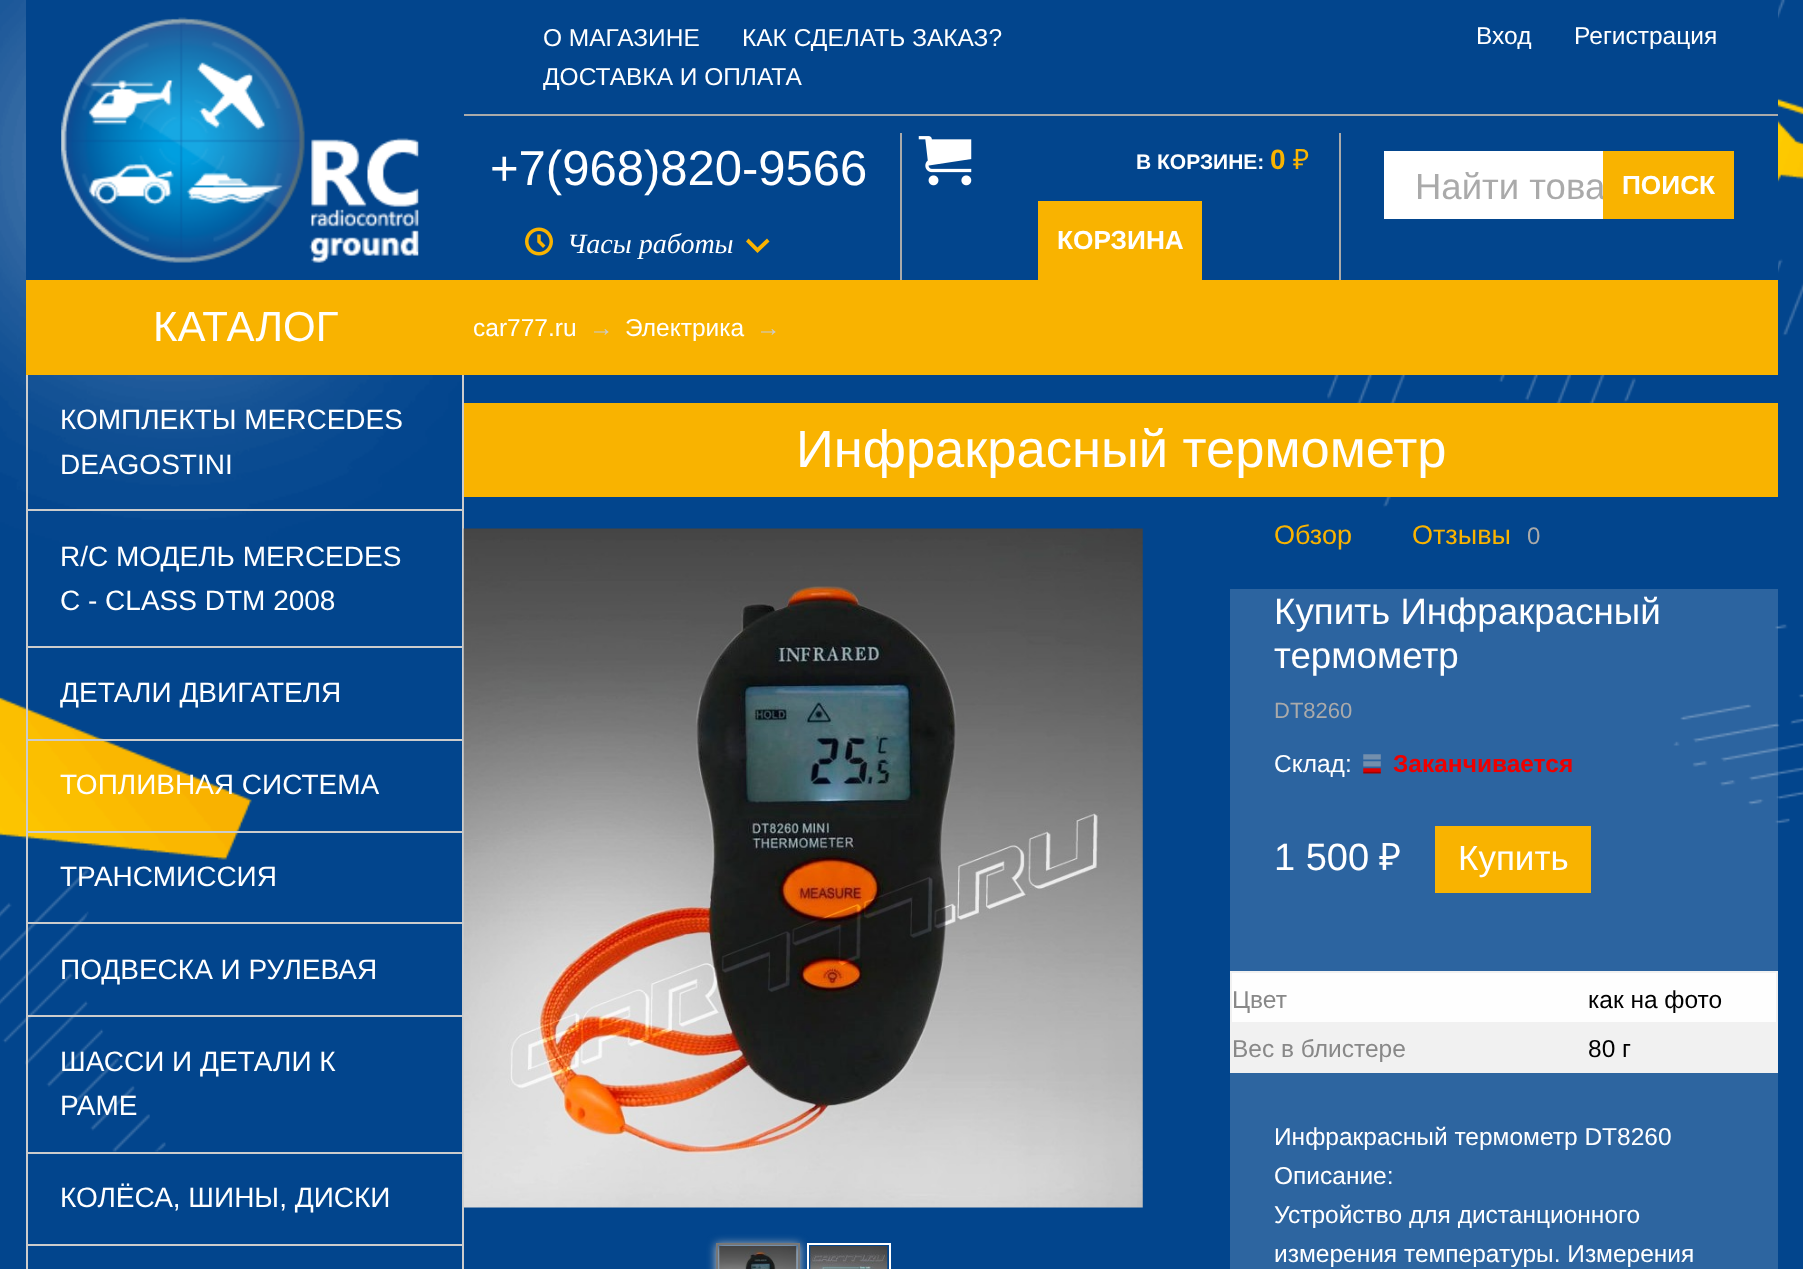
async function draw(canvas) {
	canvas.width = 1803;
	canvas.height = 1269;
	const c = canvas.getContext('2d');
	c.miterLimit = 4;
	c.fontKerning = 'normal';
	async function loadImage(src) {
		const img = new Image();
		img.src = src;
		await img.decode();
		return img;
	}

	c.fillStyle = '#02458d';
	c.fillRect(0, 0, 1803, 1269);
	c.drawImage(await loadImage('img1.png'), 0, 0, 1803, 1152);
	c.fillRect(26, 0, 1752, 280);
	c.drawImage(await loadImage('img2.png'), 61, 17, 358, 246);
	c.font = '24.5px Liberation Sans';
	c.fillStyle = '#fff';
	for (const [text, x, y] of [
		['О МАГАЗИНЕ', 543, 46],
		['КАК СДЕЛАТЬ ЗАКАЗ?', 742, 46],
		['ДОСТАВКА И ОПЛАТА', 543, 85],
		['Вход', 1476, 44],
		['Регистрация', 1574, 44],
	]) {
		c.fillText(text, x, y);
	}
	c.fillStyle = '#aaa';
	c.fillRect(464, 114, 1314, 2);
	c.fillRect(900, 133, 2, 147);
	c.font = '49px Liberation Sans';
	c.fillStyle = '#fff';
	c.fillText('+7(968)820-9566', 490, 185);
	c.drawImage(await loadImage('img3.png'), 525, 227, 28, 29);
	c.font = 'italic 28px Liberation Serif';
	c.fillText('Часы работы', 567, 253);
	c.fillStyle = '#f9b300';
	c.beginPath();
	c.moveTo(748.5, 238.5);
	c.lineTo(757.5, 247.5);
	c.lineTo(767, 238.5);
	c.lineTo(769.5, 241.5);
	c.lineTo(757.5, 253);
	c.lineTo(746, 241.5);
	c.closePath();
	c.fill();
	c.fillStyle = '#aaa';
	c.fillRect(1339, 133, 2, 147);
	c.drawImage(await loadImage('img4.png'), 918, 136, 54, 50);
	c.font = 'bold 21px Liberation Sans';
	c.fillStyle = '#fff';
	c.fillText('В КОРЗИНЕ:', 1136, 169);
	c.font = 'bold 28px Liberation Sans';
	c.fillStyle = '#f9b300';
	c.fillText('0', 1270, 169);
	c.font = '28px Noto Sans';
	c.fillText('₽', 1293, 169);
	c.fillRect(1038, 201, 164, 79);
	c.font = 'bold 26.25px Liberation Sans';
	c.fillStyle = '#fff';
	c.fillText('КОРЗИНА', 1057, 249);
	c.fillRect(1384, 151, 219, 68);
	c.font = '36.5px Liberation Sans';
	c.fillStyle = '#aaa';
	c.fillText('Найти това', 1415, 199);
	c.fillStyle = '#f9b300';
	c.fillRect(1603, 151, 131, 68);
	c.font = 'bold 26.25px Liberation Sans';
	c.fillStyle = '#fff';
	c.fillText('ПОИСК', 1622, 194);
	c.fillStyle = '#f9b300';
	c.fillRect(26, 280, 1752, 95);
	c.font = '42px Liberation Sans';
	c.fillStyle = '#fff';
	c.fillText('КАТАЛОГ', 153, 341);
	for (const [x, y, w, h, color] of [
		[462, 375, 2, 894, '#ccc'],
		[26, 375, 2, 894, '#ccc'],
		[28, 509, 434, 2, '#ccc'],
	]) {
		c.fillStyle = color;
		c.fillRect(x, y, w, h);
	}
	c.font = '28px Liberation Sans';
	c.fillStyle = '#fff';
	c.fillText('КОМПЛЕКТЫ MERCEDES', 60, 429);
	c.fillText('DEAGOSTINI', 60, 474);
	c.fillStyle = '#ccc';
	c.fillRect(28, 646, 434, 2);
	c.fillStyle = '#fff';
	c.fillText('R/C МОДЕЛЬ MERCEDES', 60, 566);
	c.fillText('C - CLASS DTM 2008', 60, 610);
	c.fillStyle = '#ccc';
	c.fillRect(28, 739, 434, 2);
	c.fillStyle = '#fff';
	c.fillText('ДЕТАЛИ ДВИГАТЕЛЯ', 60, 702);
	c.fillStyle = '#ccc';
	c.fillRect(28, 831, 434, 2);
	c.fillStyle = '#fff';
	c.fillText('ТОПЛИВНАЯ СИСТЕМА', 60, 794);
	c.fillStyle = '#ccc';
	c.fillRect(28, 922, 434, 2);
	c.fillStyle = '#fff';
	c.fillText('ТРАНСМИССИЯ', 60, 886);
	c.fillStyle = '#ccc';
	c.fillRect(28, 1015, 434, 2);
	c.fillStyle = '#fff';
	c.fillText('ПОДВЕСКА И РУЛЕВАЯ', 60, 979);
	c.fillStyle = '#ccc';
	c.fillRect(28, 1152, 434, 2);
	c.fillStyle = '#fff';
	c.fillText('ШАССИ И ДЕТАЛИ К', 60, 1071);
	c.fillText('РАМЕ', 60, 1115);
	c.fillStyle = '#ccc';
	c.fillRect(28, 1244, 434, 2);
	c.fillStyle = '#fff';
	c.fillText('КОЛЁСА, ШИНЫ, ДИСКИ', 60, 1207);
	c.font = '24.5px Liberation Sans';
	c.fillText('car777.ru', 473, 336);
	c.fillStyle = '#ccc';
	c.fillText('→', 589, 336);
	c.fillStyle = '#fff';
	c.fillText('Электрика', 625, 336);
	c.fillStyle = '#ccc';
	c.fillText('→', 756, 336);
	c.fillStyle = '#f9b300';
	c.fillRect(464, 403, 1314, 94);
	c.font = '52.5px Liberation Sans';
	c.fillStyle = '#fff';
	c.fillText('Инфракрасный термометр', 796, 467);
	c.drawImage(await loadImage('img5.png'), 463, 528, 680, 680);
	c.fillStyle = '#bbb';
	c.filter = 'blur(5px)';
	c.beginPath();
	c.rect(716, 1244, 84, 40);
	c.fill();
	c.filter = 'none';
	c.strokeStyle = '#777';
	c.lineWidth = 2;
	c.strokeRect(717, 1244, 82, 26);
	c.drawImage(await loadImage('img6.png'), 719, 1246, 78, 23);
	c.strokeStyle = '#fff';
	c.strokeRect(808, 1244, 82, 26);
	c.drawImage(await loadImage('img7.png'), 810, 1246, 78, 23);
	c.font = '27px Liberation Sans';
	c.fillStyle = '#f9b300';
	c.fillText('Обзор', 1274, 544);
	c.fillText('Отзывы', 1412, 544);
	c.font = '24px Liberation Sans';
	c.fillStyle = '#aaa';
	c.fillText('0', 1527, 544);
	c.fillStyle = '#ffffff2b';
	c.fillRect(1230, 589, 548, 382);
	c.font = '36.75px Liberation Sans';
	c.fillStyle = '#fff';
	c.fillText('Купить Инфракрасный', 1274, 624);
	c.fillText('термометр', 1274, 668);
	c.font = '22px Liberation Sans';
	c.fillStyle = '#aaa';
	c.fillText('DT8260', 1274, 718);
	c.font = '24.5px Liberation Sans';
	c.fillStyle = '#fff';
	c.fillText('Склад:', 1274, 772);
	c.drawImage(await loadImage('img8.png'), 1363, 754, 18, 20);
	c.font = 'bold 24.5px Liberation Sans';
	c.fillStyle = '#e00';
	c.fillText('Заканчивается', 1393, 772);
	c.font = '38px Liberation Sans';
	c.fillStyle = '#fff';
	c.fillText('1 500', 1274, 870);
	c.font = '38px Noto Sans';
	c.fillText('₽', 1379, 870);
	c.fillStyle = '#f9b300';
	c.fillRect(1435, 826, 156, 67);
	c.font = '35px Liberation Sans';
	c.fillStyle = '#fff';
	c.fillText('Купить', 1458, 870);
	for (const [x, y, w, h, color] of [
		[1232, 973, 544, 49, '#fefefe'],
		[1230, 971, 548, 2, '#f1f1f1'],
		[1776, 971, 2, 102, '#f1f1f1'],
		[1230, 1071, 548, 2, '#f1f1f1'],
		[1230, 971, 2, 102, '#f1f1f1'],
	]) {
		c.fillStyle = color;
		c.fillRect(x, y, w, h);
	}
	c.font = '24.5px Liberation Sans';
	c.fillStyle = '#888';
	c.fillText('Цвет', 1232, 1008);
	c.fillStyle = '#000';
	c.fillText('как на фото', 1588, 1008);
	c.fillStyle = '#f1f1f1';
	c.fillRect(1232, 1022, 544, 49);
	c.fillStyle = '#888';
	c.fillText('Вес в блистере', 1232, 1057);
	c.fillStyle = '#000';
	c.fillText('80 г', 1588, 1057);
	c.fillStyle = '#2d65a0';
	c.fillRect(1230, 1073, 548, 196);
	c.fillStyle = '#fff';
	for (const [text, x, y] of [
		['Инфракрасный термометр DT8260', 1274, 1145],
		['Описание:', 1274, 1184],
		['Устройство для дистанционного', 1274, 1223],
		['измерения температуры. Измерения', 1274, 1262],
	]) {
		c.fillText(text, x, y);
	}
}

draw(document.querySelector('canvas'));
